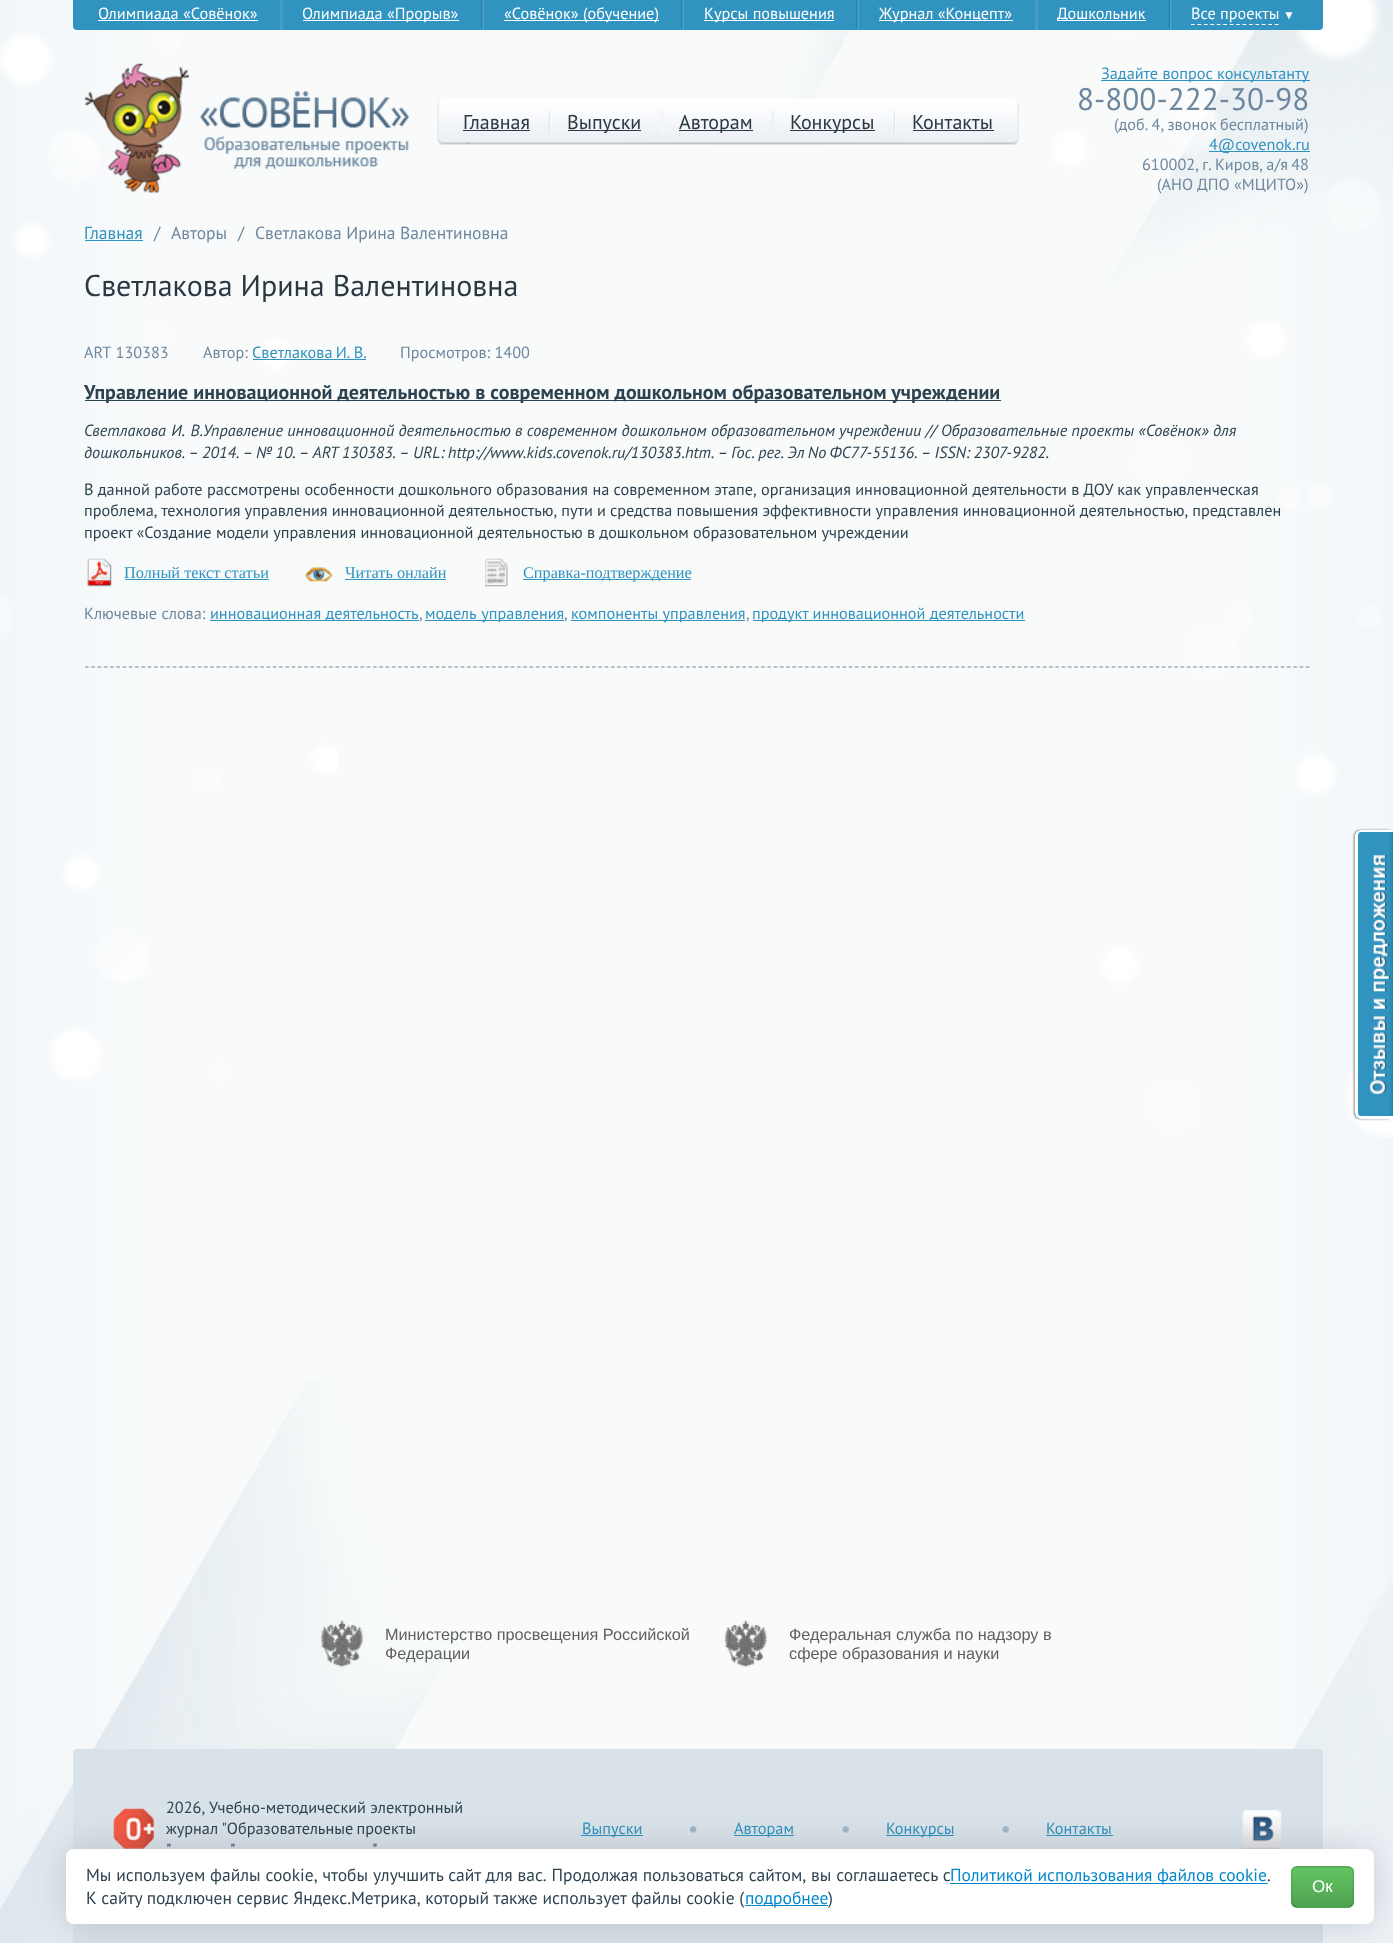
async function draw(canvas) {
	canvas.width = 1393;
	canvas.height = 1943;
	const c = canvas.getContext('2d');
	c.miterLimit = 4;
	c.fontKerning = 'normal';
	async function loadImage(src) {
		const img = new Image();
		img.src = src;
		await img.decode();
		return img;
	}
	let gradient;

	c.fillStyle = '#fff';
	c.fillRect(0, 0, 1393, 1943);
	c.drawImage(await loadImage('img1.png'), 0, 0, 1393, 1943);
	c.drawImage(await loadImage('img2.png'), 0, 1379, 1393, 564);
	c.drawImage(await loadImage('img3.png'), 793, 0, 600, 1138);
	c.fillStyle = '#3193c0';
	c.beginPath();
	c.roundRect(73, 0, 1250, 30, [0, 0, 4, 4]);
	c.fill();
	c.fillStyle = '#fff';
	c.fillRect(98, 20, 160, 1);
	c.font = '16.25px PT Sans';
	c.fillText('Олимпиада «Совёнок»', 98, 19);
	c.fillRect(303, 20, 156, 1);
	c.fillText('Олимпиада «Прорыв»', 302, 19);
	c.fillStyle = '#459cc4';
	c.fillRect(280, 0, 3, 30);
	c.drawImage(await loadImage('img4.png'), 481, 0, 3, 30);
	c.fillStyle = '#fff';
	c.fillRect(504, 20, 155, 1);
	c.fillText('«Совёнок» (обучение)', 504, 19);
	c.drawImage(await loadImage('img4.png'), 681, 0, 3, 30);
	c.fillRect(704, 20, 130, 1);
	c.fillText('Курсы повышения', 704, 19);
	c.drawImage(await loadImage('img5.png'), 856, 0, 3, 30);
	c.fillRect(879, 20, 134, 1);
	c.fillText('Журнал «Концепт»', 879, 19);
	c.fillRect(1058, 20, 88, 1);
	c.fillText('Дошкольник', 1057, 19);
	c.fillStyle = '#459cc4';
	c.fillRect(1035, 0, 3, 30);
	c.drawImage(await loadImage('img6.png'), 1168, 0, 4, 30);
	c.fillStyle = '#fff';
	c.fillText('Все проекты', 1191, 19);
	c.beginPath();
	c.moveTo(1191, 24.5);
	c.lineTo(1279, 24.5);
	c.strokeStyle = '#fff';
	c.lineWidth = 1.2;
	c.setLineDash([3.75, 2.69]);
	c.stroke();
	c.font = '12px Liberation Sans';
	c.fillText('▼', 1283, 19);
	c.drawImage(await loadImage('img7.png'), 0, 32, 338, 1049);
	c.drawImage(await loadImage('img8.png'), 85, 63, 324, 130);
	c.drawImage(await loadImage('img9.png'), 981, 99, 38, 46);
	c.drawImage(await loadImage('img10.png'), 437, 99, 576, 46);
	c.font = '20px PT Sans';
	c.fillStyle = '#2a3841';
	c.fillText('Главная', 463, 129);
	c.fillRect(463, 130, 67, 1);
	c.drawImage(await loadImage('img11.png'), 548, 111, 4, 23);
	c.fillRect(568, 130, 73, 1);
	c.fillText('Выпуски', 567, 129);
	c.fillStyle = '#f4f6f9';
	c.fillRect(660, 111, 3, 23);
	c.fillStyle = '#2a3841';
	c.fillRect(679, 130, 74, 1);
	c.fillText('Авторам', 679, 129);
	c.fillStyle = '#eef2f5';
	c.fillRect(771, 111, 3, 23);
	c.fillStyle = '#2a3841';
	c.fillRect(790, 130, 85, 1);
	c.fillText('Конкурсы', 790, 129);
	c.drawImage(await loadImage('img11.png'), 893, 111, 4, 23);
	c.fillText('Контакты', 912, 129);
	c.fillRect(913, 130, 81, 1);
	c.fillStyle = '#3193c0';
	c.fillRect(1101, 80, 209, 1);
	c.font = '16.25px PT Sans';
	c.fillText('Задайте вопрос консультанту', 1101, 79);
	c.font = '31.25px PT Sans';
	c.fillStyle = '#6d879e';
	c.fillText('8-800-222-30-98', 1077, 110);
	c.wordSpacing = '-1px';
	c.font = '16.25px PT Sans';
	c.fillText('(доб. 4, звонок бесплатный)', 1114, 130);
	c.fillStyle = '#3193c0';
	c.fillRect(1209, 151, 101, 1);
	c.wordSpacing = '0px';
	c.fillText('4@covenok.ru', 1209, 150);
	c.wordSpacing = '-1px';
	c.fillStyle = '#6d879e';
	c.fillText('610002, г. Киров, а/я 48', 1142, 170);
	c.wordSpacing = '0px';
	c.fillText('(АНО ДПО «МЦИТО»)', 1157, 190);
	c.font = '17.5px PT Sans';
	c.fillStyle = '#3193c0';
	c.fillText('Главная', 84, 239);
	c.fillRect(85, 240, 58, 1);
	c.fillStyle = '#6d879e';
	for (const [text, x, y] of [
		['/', 154, 239],
		['Авторы', 171, 239],
		['/', 238, 239],
		['Светлакова Ирина Валентиновна', 255, 239],
	]) {
		c.fillText(text, x, y);
	}
	c.font = '30px PT Sans';
	c.fillStyle = '#2a3841';
	c.fillText('Светлакова Ирина Валентиновна', 84, 296);
	c.beginPath();
	c.moveTo(85, 667);
	c.lineTo(1310, 667);
	c.strokeStyle = '#6d879e';
	c.setLineDash([3.75, 2.51]);
	c.stroke();
	c.font = '16.25px PT Sans';
	c.fillStyle = '#6d879e';
	c.fillText('ART 130383', 84, 358);
	c.fillText('Автор:', 203, 358);
	c.wordSpacing = '-1px';
	c.fillStyle = '#3193c0';
	c.fillText('Светлакова И. В.', 252, 358);
	c.fillRect(253, 359, 113, 1);
	c.wordSpacing = '0px';
	c.fillStyle = '#6d879e';
	c.fillText('Просмотров: 1400', 400, 358);
	c.fillStyle = '#2e4350';
	c.fillRect(85, 400, 916, 1);
	c.font = 'bold 20px PT Sans';
	c.fillText('Управление инновационной деятельностью в современном дошкольном образовательном учреждении', 84, 399);
	c.wordSpacing = '1px';
	c.font = 'italic 16.25px PT Sans';
	c.fillText('Светлакова И. В.', 84, 436);
	c.wordSpacing = '0px';
	c.fillText('Управление инновационной деятельностью в современном дошкольном образовательном учреждении // Образовательные проекты «Совёнок» для', 203, 436);
	c.wordSpacing = '-1px';
	c.fillText('дошкольников. – 2014. – № 10. – ART 130383. – URL: http://www.kids.covenok.ru/130383.htm. – Гос. рег. Эл No ФС77-55136. – ISSN: 2307-9282.', 84, 458);
	c.wordSpacing = '0px';
	c.font = '16.25px PT Sans';
	c.fillText('В данной работе рассмотрены особенности дошкольного образования на современном этапе, организация инновационной деятельности в ДОУ как управленческая', 84, 495);
	c.wordSpacing = '-0.25px';
	c.fillText('проблема, технология управления инновационной деятельностью, пути и средства повышения эффективности управления инновационной деятельностью, представлен', 84, 516);
	c.wordSpacing = '0px';
	c.fillText('проект «Создание модели управления инновационной деятельностью в дошкольном образовательном учреждении', 84, 538);
	c.drawImage(await loadImage('img12.png'), 87, 558, 25, 29);
	c.font = '16.25px Liberation Serif';
	c.fillStyle = '#3193c0';
	c.fillText('Полный текст статьи', 124, 578);
	c.fillRect(125, 579, 144, 1);
	c.drawImage(await loadImage('img13.png'), 305, 567, 28, 15);
	c.fillText('Читать онлайн', 345, 578);
	c.fillRect(345, 579, 101, 1);
	c.drawImage(await loadImage('img14.png'), 485, 558, 23, 29);
	c.fillRect(523, 579, 168, 1);
	c.fillText('Справка-подтверждение', 523, 578);
	c.font = '16.25px PT Sans';
	c.fillStyle = '#6d879e';
	c.fillText('Ключевые слова:', 84, 619);
	c.fillStyle = '#3193c0';
	c.fillRect(210, 620, 209, 1);
	c.fillText('инновационная деятельность', 210, 619);
	c.fillStyle = '#6d879e';
	c.fillText(',', 419, 619);
	c.fillStyle = '#3193c0';
	c.fillRect(425, 620, 139, 1);
	c.wordSpacing = '1px';
	c.fillText('модель управления', 425, 619);
	c.wordSpacing = '0px';
	c.fillStyle = '#6d879e';
	c.fillText(',', 564, 619);
	c.fillStyle = '#3193c0';
	c.fillRect(571, 620, 174, 1);
	c.fillText('компоненты управления', 571, 619);
	c.fillStyle = '#6d879e';
	c.fillText(',', 746, 619);
	c.fillStyle = '#3193c0';
	c.fillRect(753, 620, 272, 1);
	c.fillText('продукт инновационной деятельности', 752, 619);
	c.drawImage(await loadImage('img15.png'), 321, 1620, 43, 47);
	c.font = '16.25px Liberation Sans';
	c.fillStyle = '#5f5f5f';
	c.fillText('Министерство просвещения Российской', 385, 1640);
	c.fillText('Федерации', 385, 1659);
	c.drawImage(await loadImage('img16.png'), 724, 1620, 44, 47);
	c.fillText('Федеральная служба по надзору в', 789, 1640);
	c.fillText('сфере образования и науки', 789, 1659);
	c.fillStyle = '#d9e2e8';
	c.beginPath();
	c.roundRect(73, 1749, 1250, 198, 4);
	c.fill();
	c.drawImage(await loadImage('img17.png'), 113, 1808, 41, 41);
	c.font = '16.25px PT Sans';
	c.fillStyle = '#2e4350';
	c.fillText('2026, Учебно-методический электронный', 166, 1813);
	c.wordSpacing = '-1px';
	for (const [text, x, y] of [
		['журнал "Образовательные проекты', 166, 1834],
		['"', 166, 1855],
		['"', 230, 1855],
		['"', 372, 1855],
	]) {
		c.fillText(text, x, y);
	}
	c.fillStyle = '#3193c0';
	c.fillRect(581, 1835, 62, 1);
	c.wordSpacing = '0px';
	c.fillText('Выпуски', 582, 1834);
	c.drawImage(await loadImage('img18.png'), 690, 1826, 7, 7);
	c.fillRect(734, 1835, 60, 1);
	c.fillText('Авторам', 734, 1834);
	c.drawImage(await loadImage('img19.png'), 842, 1826, 7, 7);
	c.fillRect(886, 1835, 68, 1);
	c.fillText('Конкурсы', 886, 1834);
	c.drawImage(await loadImage('img20.png'), 1002, 1826, 7, 7);
	c.fillText('Контакты', 1046, 1834);
	c.fillRect(1046, 1835, 67, 1);
	c.drawImage(await loadImage('img21.png'), 1241, 1810, 41, 39);
	c.fillStyle = '#888';
	c.filter = 'blur(1px)';
	c.beginPath();
	c.roundRect(1354, 830, 39, 289, 6);
	c.fill();
	c.filter = 'none';
	c.fillStyle = '#3193c0';
	c.beginPath();
	c.moveTo(1361, 830);
	c.lineTo(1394, 830);
	c.lineTo(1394, 1119);
	c.lineTo(1361, 1119);
	c.bezierCurveTo(1357.5, 1119, 1355, 1116.5, 1355, 1113);
	c.lineTo(1355, 836);
	c.bezierCurveTo(1355, 832.5, 1357.5, 830, 1361, 830);
	c.closePath();
	c.fill();
	c.drawImage(await loadImage('img22.png'), 1389, 832, 4, 284);
	c.fillStyle = '#fff';
	c.beginPath();
	c.moveTo(1361, 830);
	c.lineTo(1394, 830);
	c.lineTo(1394, 1119);
	c.lineTo(1361, 1119);
	c.bezierCurveTo(1358, 1119, 1355, 1116, 1355, 1112);
	c.lineTo(1355, 836);
	c.bezierCurveTo(1355, 833, 1358, 830, 1361, 830);
	c.closePath();
	c.moveTo(1361, 832);
	c.lineTo(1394, 832);
	c.lineTo(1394, 1116);
	c.lineTo(1361, 1116);
	c.bezierCurveTo(1359, 1116, 1358, 1115, 1358, 1112);
	c.lineTo(1358, 836);
	c.bezierCurveTo(1358, 834, 1359, 832, 1361, 832);
	c.closePath();
	c.fill('evenodd');
	c.drawImage(await loadImage('img23.png'), 1369, 854, 21, 241);
	c.fillStyle = '#05001f26';
	c.filter = 'blur(17.5px)';
	c.beginPath();
	c.roundRect(66, 1849, 1308, 75, 8);
	c.fill();
	c.filter = 'none';
	c.fillStyle = '#fff';
	c.beginPath();
	c.roundRect(66, 1849, 1308, 75, 8);
	c.fill();
	c.wordSpacing = '0.2px';
	c.font = '17.5px PT Sans';
	c.fillStyle = '#2e4350';
	c.fillText('Мы используем файлы cookie, чтобы улучшить сайт для вас. Продолжая пользоваться сайтом, вы соглашаетесь с', 86, 1881);
	c.fillStyle = '#08c';
	c.fillRect(950, 1883, 318, 1);
	c.wordSpacing = '0px';
	c.fillText('Политикой использования файлов cookie', 950, 1881);
	c.fillStyle = '#2e4350';
	c.fillText('.', 1267, 1881);
	c.fillText('К сайту подключен сервис Яндекс.Метрика, который также использует файлы cookie (', 86, 1904);
	c.fillStyle = '#08c';
	c.fillRect(745, 1905, 83, 1);
	c.fillText('подробнее', 745, 1904);
	c.fillStyle = '#2e4350';
	c.fillText(')', 828, 1904);
	c.fillStyle = '#5bb75b';
	c.beginPath();
	c.roundRect(1291, 1866, 63, 42, 6);
	c.fill();
	c.save();
	c.beginPath();
	c.roundRect(1291, 1866, 63, 42, 6);
	c.clip();
	gradient = c.createLinearGradient(1323, 1868, 1323, 1906);
	gradient.addColorStop(0, '#62c462');
	gradient.addColorStop(1, '#51a351');
	c.fillStyle = gradient;
	c.fillRect(1291, 1868, 63, 38);
	c.restore();
	c.beginPath();
	c.moveTo(1351.5, 1905);
	c.bezierCurveTo(1350.5, 1906.5, 1349, 1907, 1347.5, 1907);
	c.lineTo(1297.5, 1907);
	c.bezierCurveTo(1296, 1907, 1294.5, 1906.5, 1293.5, 1905);
	c.strokeStyle = '#00000040';
	c.setLineDash([]);
	c.stroke();
	c.beginPath();
	c.moveTo(1293.5, 1905);
	c.bezierCurveTo(1292.5, 1904, 1292, 1902.5, 1292, 1901);
	c.lineTo(1292, 1872.5);
	c.bezierCurveTo(1292, 1871, 1292.5, 1869.5, 1293.5, 1868.5);
	c.bezierCurveTo(1294.5, 1867.5, 1296, 1867, 1297.5, 1867);
	c.lineTo(1347.5, 1867);
	c.bezierCurveTo(1349, 1867, 1350.5, 1867.5, 1351.5, 1868.5);
	c.bezierCurveTo(1352.5, 1869.5, 1353, 1871, 1353, 1872.5);
	c.lineTo(1353, 1901);
	c.bezierCurveTo(1353, 1902.5, 1352.5, 1904, 1351.5, 1905);
	c.strokeStyle = '#0000001a';
	c.stroke();
	c.font = '17px Liberation Sans';
	c.fillStyle = '#fff';
	c.fillText('Ок', 1312, 1892);
}

draw(document.querySelector('canvas'));
